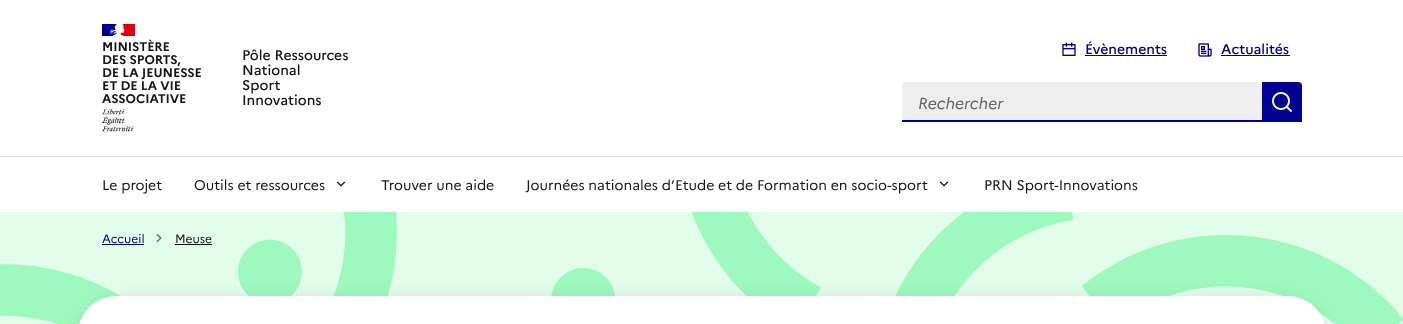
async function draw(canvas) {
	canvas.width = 1403;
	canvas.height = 324;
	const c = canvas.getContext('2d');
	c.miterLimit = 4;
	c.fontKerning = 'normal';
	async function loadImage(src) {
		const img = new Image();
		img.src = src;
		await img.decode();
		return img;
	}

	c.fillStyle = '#fff';
	c.fillRect(0, 0, 1403, 324);
	c.fillStyle = '#000091';
	c.fillRect(102, 24, 16, 12);
	c.fillStyle = '#e1000f';
	c.fillRect(120, 24, 15, 12);
	c.drawImage(await loadImage('img1.png'), 109, 24, 16, 12);
	c.letterSpacing = '-0.1px';
	c.font = 'bold 12.5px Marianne';
	c.fillStyle = '#161616';
	for (const [text, x, y] of [
		['MINISTÈRE', 102, 51],
		['DES SPORTS,', 102, 64],
		['DE LA JEUNESSE', 102, 77],
		['ET DE LA VIE', 102, 90],
		['ASSOCIATIVE', 102, 103],
	]) {
		c.fillText(text, x, y);
	}
	c.drawImage(await loadImage('img2.png'), 102, 109, 32, 24);
	c.letterSpacing = '0px';
	c.font = '500 14px Marianne';
	for (const [text, x, y] of [
		['Pôle Ressources', 242, 60],
		['National', 242, 75],
		['Sport', 242, 90],
		['Innovations', 242, 105],
	]) {
		c.fillText(text, x, y);
	}
	c.drawImage(await loadImage('img3.png'), 1062, 42, 14, 14);
	c.fillStyle = '#000091';
	c.fillText('Évènements', 1085, 54);
	c.fillRect(1085, 55, 82, 1);
	c.drawImage(await loadImage('img4.png'), 1198, 43, 14, 14);
	c.fillText('Actualités', 1221, 54);
	c.fillRect(1221, 55, 69, 1);
	c.fillStyle = '#eee';
	c.beginPath();
	c.roundRect(902, 82, 360, 40, [4, 0, 0, 0]);
	c.fill();
	c.fillStyle = '#000091';
	c.fillRect(902, 120, 360, 2);
	c.font = 'italic 16px Marianne';
	c.fillStyle = '#666';
	c.fillText('Rechercher', 918, 109);
	c.fillStyle = '#000091';
	c.beginPath();
	c.roundRect(1262, 82, 40, 40, [0, 4, 0, 0]);
	c.fill();
	c.drawImage(await loadImage('img5.png'), 1272, 92, 21, 21);
	c.fillStyle = '#ddd';
	c.fillRect(0, 156, 1403, 1);
	c.font = '14px Marianne';
	c.fillStyle = '#161616';
	c.fillText('Le projet', 102, 190);
	c.fillText('Outils et ressources', 194, 190);
	c.drawImage(await loadImage('img6.png'), 336, 181, 10, 6);
	c.fillText('Trouver une aide', 381, 190);
	c.fillText('Journées nationales d’Etude et de Formation en socio-sport', 526, 190);
	c.drawImage(await loadImage('img6.png'), 939, 181, 10, 6);
	c.fillText('PRN Sport-Innovations', 984, 190);
	c.fillStyle = '#e3fdeb';
	c.fillRect(0, 212, 1403, 112);
	c.drawImage(await loadImage('img7.png'), 0, 212, 1403, 112);
	c.font = '12px Marianne';
	c.fillStyle = '#000091';
	c.fillText('Accueil', 102, 243);
	c.fillRect(102, 244, 42, 1);
	c.drawImage(await loadImage('img8.png'), 156, 233, 6, 10);
	c.fillStyle = '#161616';
	c.fillText('Meuse', 175, 243);
	c.fillRect(175, 244, 37, 1);
	c.fillStyle = '#00001229';
	c.filter = 'blur(9px)';
	c.beginPath();
	c.roundRect(78, 302, 1248, 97, 48);
	c.fill();
	c.filter = 'none';
	c.fillStyle = '#fff';
	c.beginPath();
	c.roundRect(78, 296, 1248, 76, 48);
	c.fill();
}

draw(document.querySelector('canvas'));
